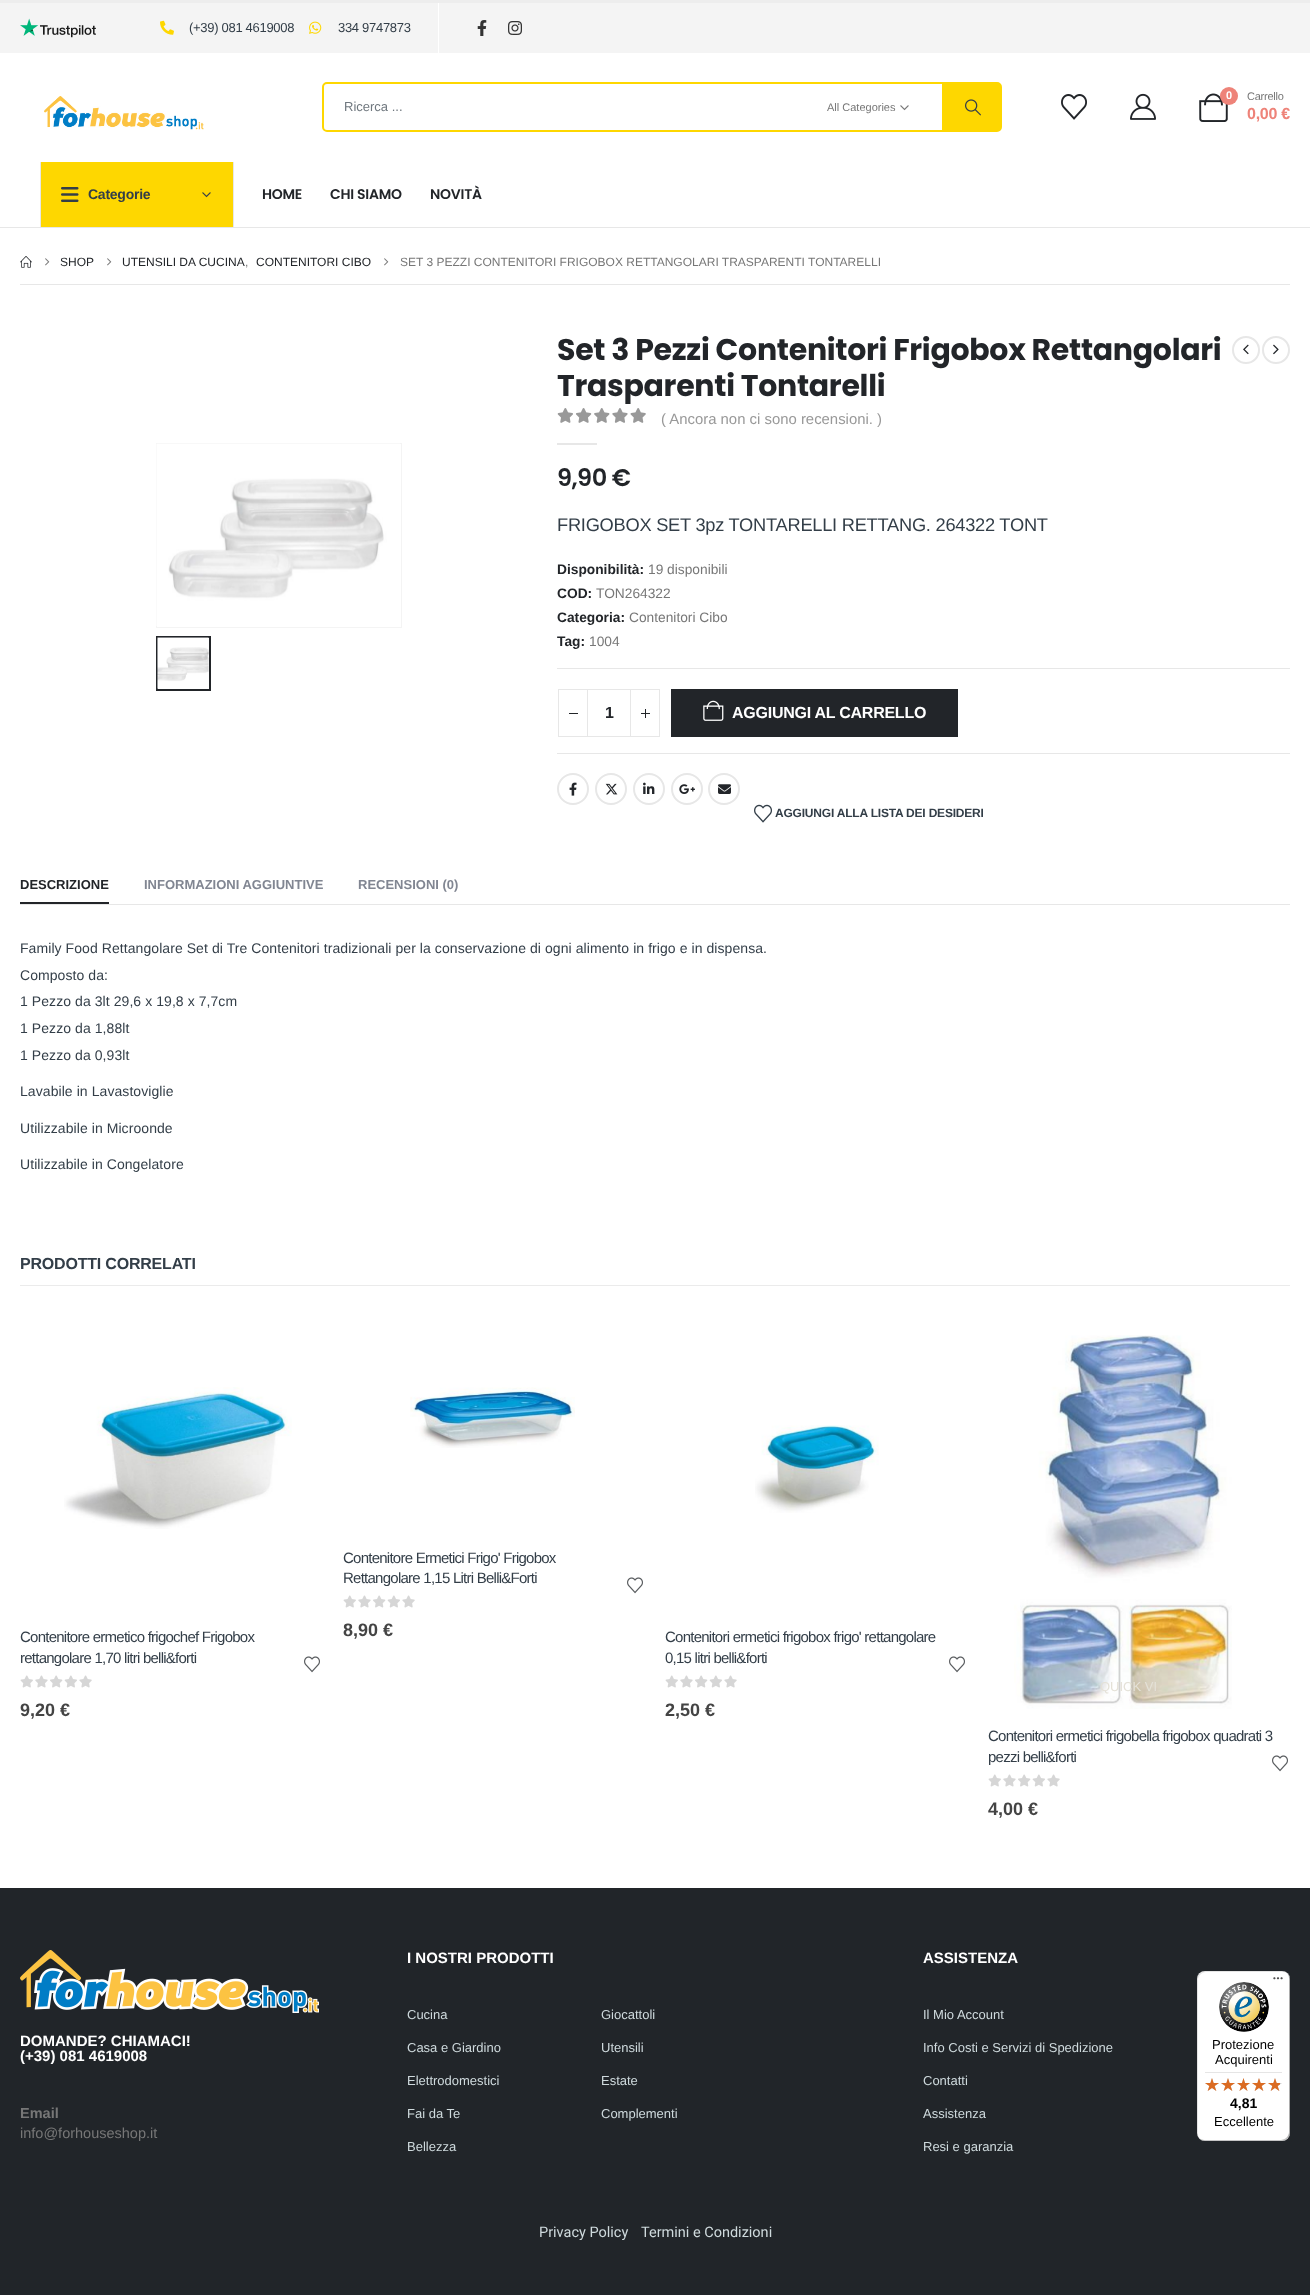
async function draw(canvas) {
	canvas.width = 1310;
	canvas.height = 2295;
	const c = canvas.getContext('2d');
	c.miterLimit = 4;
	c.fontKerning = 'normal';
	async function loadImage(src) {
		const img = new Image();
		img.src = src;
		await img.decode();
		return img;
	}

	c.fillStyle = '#fff';
	c.fillRect(0, 0, 1310, 2295);
	c.fillStyle = '#ededed';
	c.fillRect(0, 0, 1310, 3);
	c.fillStyle = '#f4f4f4';
	c.fillRect(0, 3, 1310, 50);
	c.drawImage(await loadImage('img1.png'), 20, 18, 76, 20);
	c.drawImage(await loadImage('img2.png'), 160, 20, 14, 15);
	c.letterSpacing = '-0.3px';
	c.font = '13px Liberation Sans';
	c.fillStyle = '#333e48';
	c.fillText('(+39) 081 4619008', 189, 32);
	c.drawImage(await loadImage('img3.png'), 309, 21, 13, 13);
	c.fillText('334 9747873', 338, 32);
	c.fillStyle = '#fff';
	c.fillRect(438, 3, 1, 50);
	c.drawImage(await loadImage('img4.png'), 477, 20, 10, 16);
	c.drawImage(await loadImage('img5.png'), 508, 21, 14, 14);
	c.drawImage(await loadImage('img6.png'), 44, 96, 160, 34);
	c.beginPath();
	c.roundRect(323, 83, 678, 48, 4);
	c.strokeStyle = '#fed700';
	c.lineWidth = 2;
	c.stroke();
	c.letterSpacing = '0px';
	c.fillStyle = '#70787f';
	c.fillText('Ricerca ...', 344, 111);
	c.font = '11px Liberation Sans';
	c.fillStyle = '#777';
	c.fillText('All Categories', 827, 111);
	c.drawImage(await loadImage('img7.png'), 900, 105, 9, 6);
	c.fillStyle = '#fed700';
	c.fillRect(942, 84, 58, 46);
	c.drawImage(await loadImage('img8.png'), 965, 99, 16, 17);
	c.drawImage(await loadImage('img9.png'), 1061, 94, 26, 26);
	c.drawImage(await loadImage('img10.png'), 1130, 93, 26, 27);
	c.drawImage(await loadImage('img11.png'), 1199, 93, 29, 29);
	c.fillStyle = '#ee8379';
	c.beginPath();
	c.arc(1229, 96, 9, 0, 2 * Math.PI);
	c.fill();
	c.font = 'bold 11px Liberation Sans';
	c.fillStyle = '#fff';
	c.fillText('0', 1226, 99);
	c.letterSpacing = '-0.25px';
	c.font = '11px Liberation Sans';
	c.fillStyle = '#777';
	c.fillText('Carrello', 1247, 100);
	c.font = 'bold 16px Liberation Sans';
	c.fillStyle = '#ee8379';
	c.fillText('0,00 €', 1247, 119);
	for (const [x, y, w, h, color] of [
		[233, 162, 1, 65, '#e7e7e7'],
		[40, 162, 1, 65, '#e7e7e7'],
		[41, 162, 192, 65, '#fed700'],
	]) {
		c.fillStyle = color;
		c.fillRect(x, y, w, h);
	}
	c.drawImage(await loadImage('img12.png'), 61, 187, 18, 15);
	c.font = 'bold 14px Liberation Sans';
	c.fillStyle = '#333e48';
	c.fillText('Categorie', 88, 199);
	c.drawImage(await loadImage('img13.png'), 202, 192, 9, 6);
	c.font = '600 14px Poppins';
	c.fillStyle = '#222529';
	for (const [text, x, y] of [
		['HOME', 262, 199],
		['CHI SIAMO', 330, 199],
		['NOVITÀ', 430, 199],
	]) {
		c.fillText(text, x, y);
	}
	c.fillStyle = '#e7e7e7';
	c.fillRect(0, 227, 1310, 1);
	c.drawImage(await loadImage('img14.png'), 20, 256, 12, 12);
	c.drawImage(await loadImage('img15.png'), 45, 258, 5, 8);
	c.letterSpacing = '0px';
	c.font = '12px Liberation Sans';
	c.fillStyle = '#222529';
	c.fillText('SHOP', 60, 266);
	c.drawImage(await loadImage('img15.png'), 107, 258, 5, 8);
	c.fillText('UTENSILI DA CUCINA', 122, 266);
	c.fillStyle = '#777';
	c.fillText(',', 245, 266);
	c.fillStyle = '#222529';
	c.fillText('CONTENITORI CIBO', 256, 266);
	c.drawImage(await loadImage('img15.png'), 384, 258, 5, 8);
	c.fillStyle = '#777';
	c.fillText('SET 3 PEZZI CONTENITORI FRIGOBOX RETTANGOLARI TRASPARENTI TONTARELLI', 400, 266);
	c.fillStyle = '#e7e7e7';
	c.fillRect(20, 284, 1270, 1);
	c.strokeStyle = '#f4f4f4';
	c.lineWidth = 1;
	c.strokeRect(156.5, 443.5, 245, 184);
	c.drawImage(await loadImage('img16.png'), 156, 443, 244, 183);
	c.strokeStyle = '#222529';
	c.lineWidth = 2;
	c.strokeRect(157, 637, 53, 53);
	c.drawImage(await loadImage('img17.png'), 157, 637, 52, 52);
	c.letterSpacing = '-0.3px';
	c.font = 'bold 30px Poppins';
	c.fillStyle = '#222529';
	c.fillText('Set 3 Pezzi Contenitori Frigobox Rettangolari', 557, 360);
	c.fillText('Trasparenti Tontarelli', 557, 396);
	c.beginPath();
	c.arc(1246, 350, 13, 0, 2 * Math.PI);
	c.strokeStyle = '#e7e7e7';
	c.stroke();
	c.drawImage(await loadImage('img18.png'), 1243, 344, 6, 11);
	c.beginPath();
	c.arc(1276, 350, 13, 0, 2 * Math.PI);
	c.stroke();
	c.drawImage(await loadImage('img19.png'), 1273, 344, 6, 11);
	c.drawImage(await loadImage('img20.png'), 557, 408, 89, 15);
	c.letterSpacing = '0px';
	c.font = '14.9px Liberation Sans';
	c.fillStyle = '#999';
	c.fillText('( Ancora non ci sono recensioni. )', 661, 424);
	c.fillStyle = '#e7e7e7';
	c.fillRect(557, 443, 40, 2);
	c.letterSpacing = '-0.5px';
	c.font = '600 24px Poppins';
	c.fillStyle = '#222529';
	c.fillText('9,90 €', 557, 486);
	c.letterSpacing = '-0.25px';
	c.font = '18.25px Liberation Sans';
	c.fillStyle = '#333e48';
	c.fillText('FRIGOBOX SET 3pz TONTARELLI RETTANG. 264322 TONT', 557, 531);
	c.letterSpacing = '0px';
	c.font = 'bold 13.75px Liberation Sans';
	c.fillStyle = '#222529';
	c.fillText('Disponibilità:', 557, 574);
	c.font = '13.75px Liberation Sans';
	c.fillStyle = '#777';
	c.fillText('19 disponibili', 648, 574);
	c.font = 'bold 13.75px Liberation Sans';
	c.fillStyle = '#222529';
	c.fillText('COD:', 557, 598);
	c.font = '13.75px Liberation Sans';
	c.fillStyle = '#777';
	c.fillText('TON264322', 596, 598);
	c.font = 'bold 13.75px Liberation Sans';
	c.fillStyle = '#222529';
	c.fillText('Categoria:', 557, 622);
	c.font = '13.75px Liberation Sans';
	c.fillStyle = '#777';
	c.fillText('Contenitori Cibo', 629, 622);
	c.font = 'bold 13.75px Liberation Sans';
	c.fillStyle = '#222529';
	c.fillText('Tag:', 557, 646);
	c.font = '13.75px Liberation Sans';
	c.fillStyle = '#777';
	c.fillText('1004', 589, 646);
	for (const [x, y, w, h, color] of [
		[557, 668, 733, 1, '#e7e7e7'],
		[557, 753, 733, 1, '#e7e7e7'],
		[587, 689, 44, 1, '#e7e7e7'],
		[587, 736, 44, 1, '#e7e7e7'],
	]) {
		c.fillStyle = color;
		c.fillRect(x, y, w, h);
	}
	c.lineWidth = 1;
	c.strokeRect(558.5, 689.5, 29, 47);
	c.fillStyle = '#222529';
	c.fillRect(569, 713, 9, 1);
	c.font = 'bold 16px Liberation Sans';
	c.fillText('1', 605, 718);
	c.strokeRect(630.5, 689.5, 29, 47);
	for (const [x, y, w, h, color] of [
		[641, 713, 9, 1, '#222529'],
		[645, 709, 1, 9, '#222529'],
		[671, 689, 287, 48, '#222529'],
	]) {
		c.fillStyle = color;
		c.fillRect(x, y, w, h);
	}
	c.drawImage(await loadImage('img21.png'), 703, 700, 21, 21);
	c.letterSpacing = '-0.25px';
	c.fillStyle = '#fff';
	c.fillText('AGGIUNGI AL CARRELLO', 732, 718);
	c.beginPath();
	c.arc(573, 789, 15, 0, 2 * Math.PI);
	c.lineWidth = 2;
	c.stroke();
	c.drawImage(await loadImage('img22.png'), 569, 782, 8, 14);
	c.beginPath();
	c.arc(611, 789, 15, 0, 2 * Math.PI);
	c.stroke();
	c.drawImage(await loadImage('img23.png'), 605, 783, 13, 12);
	c.beginPath();
	c.arc(649, 789, 15, 0, 2 * Math.PI);
	c.stroke();
	c.drawImage(await loadImage('img24.png'), 643, 782, 12, 12);
	c.beginPath();
	c.arc(687, 789, 15, 0, 2 * Math.PI);
	c.stroke();
	c.drawImage(await loadImage('img25.png'), 679, 784, 16, 10);
	c.beginPath();
	c.arc(724, 789, 15, 0, 2 * Math.PI);
	c.stroke();
	c.drawImage(await loadImage('img26.png'), 718, 784, 13, 10);
	c.drawImage(await loadImage('img27.png'), 754, 804, 18, 19);
	c.letterSpacing = '-0.2px';
	c.font = 'bold 12px Liberation Sans';
	c.fillStyle = '#333e48';
	c.fillText('AGGIUNGI ALLA LISTA DEI DESIDERI', 775, 817);
	c.fillStyle = '#222529';
	c.fillRect(20, 902, 89, 2);
	c.letterSpacing = '0px';
	c.font = 'bold 13px Liberation Sans';
	c.fillText('DESCRIZIONE', 20, 889);
	c.fillStyle = '#818692';
	c.fillText('INFORMAZIONI AGGIUNTIVE', 144, 889);
	c.fillText('RECENSIONI (0)', 358, 889);
	c.fillStyle = '#e7e7e7';
	c.fillRect(20, 904, 1270, 1);
	c.letterSpacing = '0.07px';
	c.font = '14px Liberation Sans';
	c.fillStyle = '#333e48';
	for (const [text, x, y] of [
		['Family Food Rettangolare Set di Tre Contenitori tradizionali per la conservazione di ogni alimento in frigo e in dispensa.', 20, 953],
		['Composto da:', 20, 980],
		['1 Pezzo da 3lt 29,6 x 19,8 x 7,7cm', 20, 1006],
		['1 Pezzo da 1,88lt', 20, 1033],
		['1 Pezzo da 0,93lt', 20, 1060],
		['Lavabile in Lavastoviglie', 20, 1096],
		['Utilizzabile in Microonde', 20, 1133],
		['Utilizzabile in Congelatore', 20, 1169],
	]) {
		c.fillText(text, x, y);
	}
	c.fillStyle = '#ebebeb';
	c.fillRect(20, 1285, 1270, 1);
	c.letterSpacing = '-0.2px';
	c.font = 'bold 16px Liberation Sans';
	c.fillStyle = '#333e48';
	c.fillText('PRODOTTI CORRELATI', 20, 1269);
	c.drawImage(await loadImage('img28.png'), 410, 1387, 165, 61);
	c.letterSpacing = '-0.75px';
	c.font = '15px Liberation Sans';
	c.fillText('Contenitore Ermetici Frigo\' Frigobox', 343, 1563);
	c.fillText('Rettangolare 1,15 Litri Belli&Forti', 343, 1583);
	c.drawImage(await loadImage('img29.png'), 627, 1577, 16, 17);
	c.drawImage(await loadImage('img30.png'), 343, 1595, 72, 13);
	c.letterSpacing = '0px';
	c.font = 'bold 18px Liberation Sans';
	c.fillStyle = '#444';
	c.fillText('8,90 €', 343, 1636);
	c.drawImage(await loadImage('img31.png'), 64, 1387, 228, 142);
	c.letterSpacing = '-0.75px';
	c.font = '15px Liberation Sans';
	c.fillStyle = '#333e48';
	c.fillText('Contenitore ermetico frigochef Frigobox', 20, 1642);
	c.fillText('rettangolare 1,70 litri belli&forti', 20, 1663);
	c.drawImage(await loadImage('img29.png'), 304, 1656, 16, 17);
	c.drawImage(await loadImage('img30.png'), 20, 1675, 72, 13);
	c.letterSpacing = '0px';
	c.font = 'bold 18px Liberation Sans';
	c.fillStyle = '#444';
	c.fillText('9,20 €', 20, 1716);
	c.drawImage(await loadImage('img32.png'), 755, 1425, 124, 88);
	c.letterSpacing = '-0.75px';
	c.font = '15px Liberation Sans';
	c.fillStyle = '#333e48';
	c.fillText('Contenitori ermetici frigobox frigo\' rettangolare', 665, 1642);
	c.fillText('0,15 litri belli&forti', 665, 1663);
	c.drawImage(await loadImage('img29.png'), 949, 1656, 16, 17);
	c.drawImage(await loadImage('img30.png'), 665, 1675, 72, 13);
	c.letterSpacing = '0px';
	c.font = 'bold 18px Liberation Sans';
	c.fillStyle = '#444';
	c.fillText('2,50 €', 665, 1716);
	c.drawImage(await loadImage('img33.png'), 1014, 1335, 218, 374);
	c.font = '13px Liberation Sans';
	c.fillStyle = '#e4e1d7';
	c.fillText('QUICK VI', 1100, 1691);
	c.letterSpacing = '-0.75px';
	c.font = '15px Liberation Sans';
	c.fillStyle = '#333e48';
	c.fillText('Contenitori ermetici frigobella frigobox quadrati 3', 988, 1741);
	c.fillText('pezzi belli&forti', 988, 1762);
	c.drawImage(await loadImage('img29.png'), 1272, 1755, 16, 17);
	c.drawImage(await loadImage('img30.png'), 988, 1774, 72, 13);
	c.letterSpacing = '0px';
	c.font = 'bold 18px Liberation Sans';
	c.fillStyle = '#444';
	c.fillText('4,00 €', 988, 1815);
	c.fillStyle = '#212529';
	c.fillRect(0, 1888, 1310, 407);
	c.drawImage(await loadImage('img34.png'), 20, 1950, 299, 63);
	c.font = 'bold 15px Liberation Sans';
	c.fillStyle = '#fff';
	c.fillText('DOMANDE? CHIAMACI!', 20, 2046);
	c.fillText('(+39) 081 4619008', 20, 2061);
	c.font = 'bold 14.5px Liberation Sans';
	c.fillStyle = '#777';
	c.fillText('Email', 20, 2118);
	c.font = '14.5px Liberation Sans';
	c.fillText('info@forhouseshop.it', 20, 2138);
	c.font = 'bold 15px Liberation Sans';
	c.fillStyle = '#fff';
	c.fillText('I NOSTRI PRODOTTI', 407, 1963);
	c.font = '13px Liberation Sans';
	c.fillStyle = '#cfdadd';
	for (const [text, x, y] of [
		['Cucina', 407, 2019],
		['Casa e Giardino', 407, 2052],
		['Elettrodomestici', 407, 2085],
		['Fai da Te', 407, 2118],
		['Bellezza', 407, 2151],
		['Giocattoli', 601, 2019],
		['Utensili', 601, 2052],
		['Estate', 601, 2085],
		['Complementi', 601, 2118],
	]) {
		c.fillText(text, x, y);
	}
	c.font = 'bold 15px Liberation Sans';
	c.fillStyle = '#fff';
	c.fillText('ASSISTENZA', 923, 1963);
	c.font = '13px Liberation Sans';
	c.fillStyle = '#cfdadd';
	for (const [text, x, y] of [
		['Il Mio Account', 923, 2019],
		['Info Costi e Servizi di Spedizione', 923, 2052],
		['Contatti', 923, 2085],
		['Assistenza', 923, 2118],
		['Resi e garanzia', 923, 2151],
	]) {
		c.fillText(text, x, y);
	}
	c.font = '14.5px Roboto';
	c.fillText('Privacy Policy', 539, 2237);
	c.fillText('Termini e Condizioni', 641, 2237);
	c.fillStyle = '#fff';
	c.beginPath();
	c.roundRect(1197, 1971, 93, 170, 8);
	c.fill();
	c.fillStyle = '#0000001a';
	c.beginPath();
	c.moveTo(1206, 1972);
	c.lineTo(1283, 1972);
	c.bezierCurveTo(1285, 1972, 1287, 1973, 1289, 1975);
	c.bezierCurveTo(1287, 1973, 1285, 1971, 1282, 1971);
	c.lineTo(1205, 1971);
	c.bezierCurveTo(1201, 1971, 1197, 1975, 1197, 1979);
	c.lineTo(1197, 2133);
	c.bezierCurveTo(1197, 2136, 1199, 2138, 1201, 2140);
	c.bezierCurveTo(1199, 2138, 1198, 2136, 1198, 2134);
	c.lineTo(1198, 1980);
	c.bezierCurveTo(1198, 1976, 1202, 1972, 1206, 1972);
	c.closePath();
	c.fill();
	c.fillStyle = '#00000033';
	c.beginPath();
	c.moveTo(1198, 2137);
	c.bezierCurveTo(1200, 2139, 1202, 2141, 1205, 2141);
	c.lineTo(1282, 2141);
	c.bezierCurveTo(1286, 2141, 1290, 2137, 1290, 2133);
	c.lineTo(1290, 1979);
	c.bezierCurveTo(1290, 1976, 1288, 1974, 1286, 1972);
	c.bezierCurveTo(1288, 1974, 1289, 1976, 1289, 1978);
	c.lineTo(1289, 2132);
	c.bezierCurveTo(1289, 2136, 1285, 2140, 1281, 2140);
	c.lineTo(1204, 2140);
	c.bezierCurveTo(1202, 2140, 1200, 2139, 1198, 2137);
	c.closePath();
	c.fill();
	c.fillStyle = '#32323233';
	c.beginPath();
	c.moveTo(1199, 2138);
	c.bezierCurveTo(1200, 2140, 1203, 2141, 1205, 2141);
	c.lineTo(1282, 2141);
	c.bezierCurveTo(1286, 2141, 1290, 2137, 1290, 2133);
	c.lineTo(1290, 1979);
	c.bezierCurveTo(1290, 1977, 1289, 1974, 1287, 1973);
	c.bezierCurveTo(1288, 1974, 1289, 1976, 1289, 1978);
	c.lineTo(1289, 2132);
	c.bezierCurveTo(1289, 2137, 1286, 2140, 1281, 2140);
	c.lineTo(1204, 2140);
	c.bezierCurveTo(1202, 2140, 1200, 2139, 1199, 2138);
	c.closePath();
	c.fill();
	c.drawImage(await loadImage('img35.png'), 1273, 1977, 10, 3);
	c.fillStyle = '#ffffff4d';
	c.beginPath();
	c.moveTo(1199, 2138);
	c.bezierCurveTo(1200, 2140, 1203, 2141, 1205, 2141);
	c.lineTo(1282, 2141);
	c.bezierCurveTo(1286, 2141, 1290, 2137, 1290, 2133);
	c.lineTo(1290, 2132);
	c.bezierCurveTo(1290, 2137, 1286, 2140, 1282, 2140);
	c.lineTo(1204, 2140);
	c.bezierCurveTo(1202, 2140, 1200, 2139, 1199, 2138);
	c.closePath();
	c.fill();
	c.drawImage(await loadImage('img36.png'), 1219, 1982, 50, 50);
	c.font = '13px Liberation Sans';
	c.fillStyle = '#000';
	c.fillText('Protezione', 1212, 2049);
	c.fillText('Acquirenti', 1215, 2064);
	c.fillStyle = '#e5e5e5';
	c.fillRect(1205, 2072, 77, 1);
	c.drawImage(await loadImage('img37.png'), 1205, 2078, 14, 13);
	c.drawImage(await loadImage('img37.png'), 1221, 2078, 14, 13);
	c.drawImage(await loadImage('img38.png'), 1237, 2078, 13, 13);
	c.drawImage(await loadImage('img37.png'), 1252, 2078, 14, 13);
	c.drawImage(await loadImage('img37.png'), 1268, 2078, 14, 13);
	c.drawImage(await loadImage('img39.png'), 1205, 2078, 14, 13);
	c.drawImage(await loadImage('img39.png'), 1221, 2078, 14, 13);
	c.drawImage(await loadImage('img40.png'), 1237, 2078, 13, 13);
	c.drawImage(await loadImage('img39.png'), 1252, 2078, 14, 13);
	c.drawImage(await loadImage('img41.png'), 1268, 2078, 12, 13);
	c.font = 'bold 14px Liberation Sans';
	c.fillStyle = '#000';
	c.fillText('4,81', 1230, 2108);
	c.font = '13px Liberation Sans';
	c.fillText('Eccellente', 1214, 2126);
}

draw(document.querySelector('canvas'));
